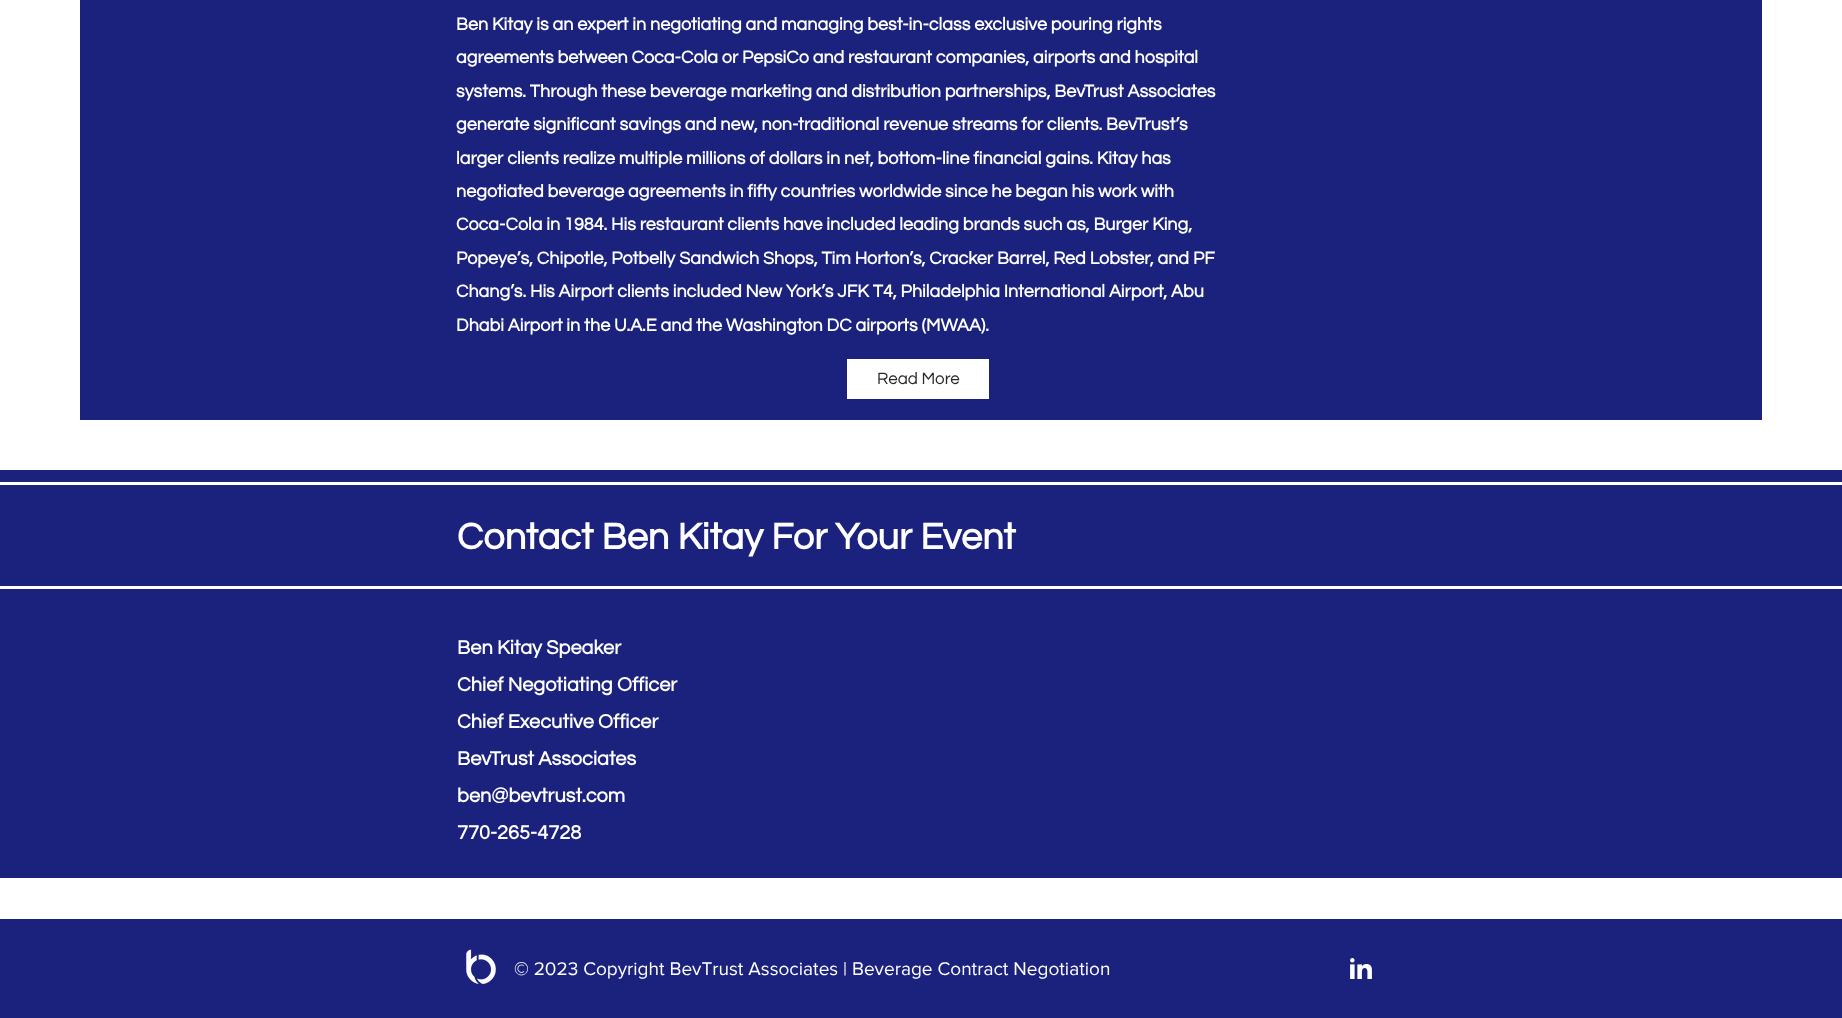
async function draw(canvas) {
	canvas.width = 1842;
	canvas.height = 1018;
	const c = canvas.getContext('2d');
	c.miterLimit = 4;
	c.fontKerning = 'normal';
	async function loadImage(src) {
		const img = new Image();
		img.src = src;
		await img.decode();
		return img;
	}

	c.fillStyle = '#fff';
	c.fillRect(0, 0, 1842, 1018);
	c.fillStyle = '#1a227e';
	c.fillRect(80, 0, 1682, 420);
	c.font = 'bold 18px Questrial';
	c.fillStyle = '#fff';
	for (const [text, x, y] of [
		['Ben Kitay is an expert in negotiating and managing best-in-class exclusive pouring rights', 456, 30],
		['agreements between Coca-Cola or PepsiCo and restaurant companies, airports and hospital', 456, 63],
		['systems. Through these beverage marketing and distribution partnerships, BevTrust Associates', 456, 97],
		['generate significant savings and new, non-traditional revenue streams for clients. BevTrust’s', 456, 130],
		['larger clients realize multiple millions of dollars in net, bottom-line financial gains. Kitay has', 456, 164],
		['negotiated beverage agreements in fifty countries worldwide since he began his work with', 456, 197],
		['Coca-Cola in 1984. His restaurant clients have included leading brands such as, Burger King,', 456, 230],
		['Popeye’s, Chipotle, Potbelly Sandwich Shops, Tim Horton’s, Cracker Barrel, Red Lobster, and PF', 456, 264],
		['Chang’s. His Airport clients included New York’s JFK T4, Philadelphia International Airport, Abu', 456, 297],
		['Dhabi Airport in the U.A.E and the Washington DC airports (MWAA).', 456, 331],
	]) {
		c.fillText(text, x, y);
	}
	c.fillRect(847, 359, 142, 40);
	c.font = '17px Questrial';
	c.fillStyle = '#282626';
	c.fillText('Read More', 877, 384);
	c.fillStyle = '#1a227e';
	c.fillRect(0, 470, 1842, 408);
	c.fillStyle = '#fff';
	c.fillRect(0, 482, 1842, 3);
	c.font = 'bold 38px Questrial';
	c.fillText('Contact Ben Kitay For Your Event', 457, 549);
	c.fillRect(0, 586, 1842, 3);
	c.font = 'bold 20px Questrial';
	for (const [text, x, y] of [
		['Ben Kitay Speaker', 457, 654],
		['Chief Negotiating Officer', 457, 691],
		['Chief Executive Officer', 457, 728],
		['BevTrust Associates', 457, 765],
		['ben@bevtrust.com', 457, 802],
		['770-265-4728', 457, 839],
	]) {
		c.fillText(text, x, y);
	}
	c.fillStyle = '#1a227e';
	c.fillRect(0, 919, 1842, 99);
	c.drawImage(await loadImage('img1.png'), 466, 949, 30, 36);
	c.font = '19px "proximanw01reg"';
	c.fillStyle = '#fff';
	c.fillText('© 2023 Copyright BevTrust Associates | Beverage Contract Negotiation', 514, 975);
	c.drawImage(await loadImage('img2.png'), 1350, 958, 22, 21);
}

draw(document.querySelector('canvas'));
